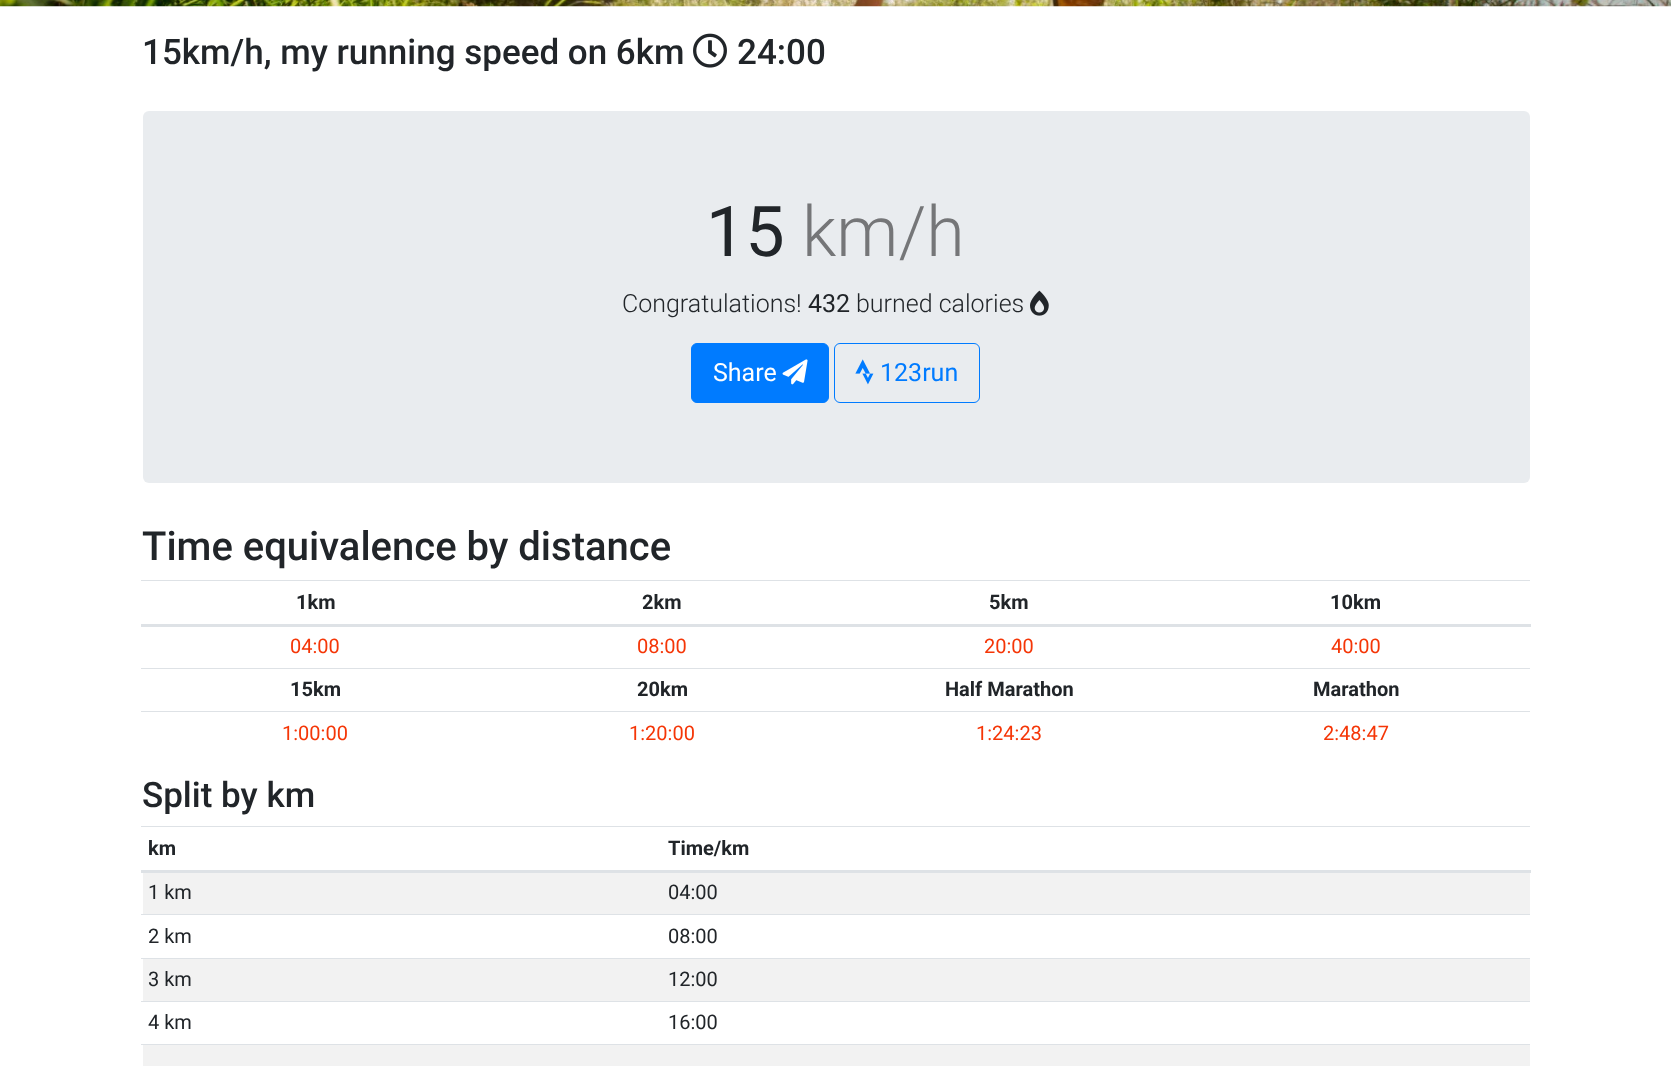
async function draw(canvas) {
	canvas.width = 1671;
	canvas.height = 1066;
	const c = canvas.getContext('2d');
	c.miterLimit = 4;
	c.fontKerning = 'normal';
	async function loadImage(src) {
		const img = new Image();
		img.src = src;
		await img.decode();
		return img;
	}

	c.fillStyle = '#fff';
	c.fillRect(0, 0, 1671, 1066);
	c.drawImage(await loadImage('img1.png'), 0, 0, 1671, 7);
	c.font = '500 35px Roboto';
	c.fillStyle = '#212529';
	c.fillText('15km/h, my running speed on 6km', 142, 64);
	c.drawImage(await loadImage('img2.png'), 693, 33, 34, 35);
	c.fillText('24:00', 737, 64);
	c.fillStyle = '#e9ecef';
	c.beginPath();
	c.roundRect(143, 111, 1387, 372, 6);
	c.fill();
	c.font = '70px Roboto';
	c.fillStyle = '#212529';
	c.fillText('15', 706, 256);
	c.font = '300 70px Roboto';
	c.fillStyle = '#757678';
	c.fillText('km/h', 802, 256);
	c.font = '300 25px Roboto';
	c.fillStyle = '#212529';
	c.fillText('Congratulations!', 622, 312);
	c.font = '25px Roboto';
	c.fillText('432', 808, 312);
	c.font = '300 25px Roboto';
	c.fillText('burned calories', 856, 312);
	c.drawImage(await loadImage('img3.png'), 1030, 290, 19, 26);
	c.fillStyle = '#007bff';
	c.beginPath();
	c.roundRect(691.5, 343.5, 137, 59, 5.5);
	c.fill();
	c.strokeStyle = '#007bff';
	c.stroke();
	c.font = '25px Roboto';
	c.fillStyle = '#fff';
	c.fillText('Share', 713, 381);
	c.drawImage(await loadImage('img4.png'), 782, 359, 26, 26);
	c.beginPath();
	c.roundRect(834.5, 343.5, 145, 59, 5.5);
	c.stroke();
	c.drawImage(await loadImage('img5.png'), 855, 359, 19, 26);
	c.fillStyle = '#007bff';
	c.fillText('123run', 880, 381);
	c.font = '500 40px Roboto';
	c.fillStyle = '#212529';
	c.fillText('Time equivalence by distance', 142, 560);
	c.font = 'bold 20px Roboto';
	for (const [text, x, y] of [
		['1km', 296, 609],
		['2km', 642, 609],
		['5km', 989, 609],
	]) {
		c.fillText(text, x, y);
	}
	c.fillStyle = '#dee2e6';
	c.fillRect(141, 580, 1389, 1);
	c.fillRect(141, 624, 1390, 3);
	c.fillStyle = '#212529';
	c.fillText('10km', 1330, 609);
	c.font = '20px Roboto';
	c.fillStyle = '#f53607';
	for (const [text, x, y] of [
		['04:00', 290, 653],
		['08:00', 637, 653],
		['20:00', 984, 653],
		['40:00', 1331, 653],
	]) {
		c.fillText(text, x, y);
	}
	c.font = 'bold 20px Roboto';
	c.fillStyle = '#212529';
	for (const [text, x, y] of [
		['15km', 290, 696],
		['20km', 637, 696],
		['Half Marathon', 945, 696],
	]) {
		c.fillText(text, x, y);
	}
	c.fillStyle = '#dee2e6';
	c.fillRect(141, 668, 1389, 1);
	c.fillStyle = '#212529';
	c.fillText('Marathon', 1313, 696);
	c.font = '20px Roboto';
	c.fillStyle = '#f53607';
	for (const [text, x, y] of [
		['1:00:00', 282, 740],
		['1:20:00', 629, 740],
		['1:24:23', 976, 740],
	]) {
		c.fillText(text, x, y);
	}
	c.fillStyle = '#dee2e6';
	c.fillRect(141, 711, 1389, 1);
	c.fillStyle = '#f53607';
	c.fillText('2:48:47', 1323, 740);
	c.font = '500 35px Roboto';
	c.fillStyle = '#212529';
	c.fillText('Split by km', 142, 807);
	c.font = 'bold 20px Roboto';
	c.fillText('km', 148, 855);
	c.fillStyle = '#dee2e6';
	c.fillRect(141, 826, 1389, 1);
	c.fillRect(141, 870, 1390, 3);
	c.fillStyle = '#212529';
	c.fillText('Time/km', 668, 855);
	c.fillStyle = '#f2f2f2';
	c.fillRect(143, 873, 1387, 41);
	c.font = '20px Roboto';
	c.fillStyle = '#212529';
	for (const [text, x, y] of [
		['1 km', 148, 899],
		['04:00', 668, 899],
		['2 km', 148, 943],
	]) {
		c.fillText(text, x, y);
	}
	c.fillStyle = '#dee2e6';
	c.fillRect(141, 914, 1389, 1);
	c.fillStyle = '#212529';
	c.fillText('08:00', 668, 943);
	c.fillStyle = '#f2f2f2';
	c.fillRect(143, 959, 1387, 42);
	c.fillStyle = '#212529';
	c.fillText('3 km', 148, 986);
	c.fillStyle = '#dee2e6';
	c.fillRect(141, 958, 1389, 1);
	c.fillStyle = '#212529';
	c.fillText('12:00', 668, 986);
	c.fillText('4 km', 148, 1029);
	c.fillStyle = '#dee2e6';
	c.fillRect(141, 1001, 1389, 1);
	c.fillStyle = '#212529';
	c.fillText('16:00', 668, 1029);
	c.fillStyle = '#f2f2f2';
	c.fillRect(143, 1045, 1387, 21);
	c.fillStyle = '#dee2e6';
	c.fillRect(141, 1044, 1389, 1);
}

draw(document.querySelector('canvas'));
